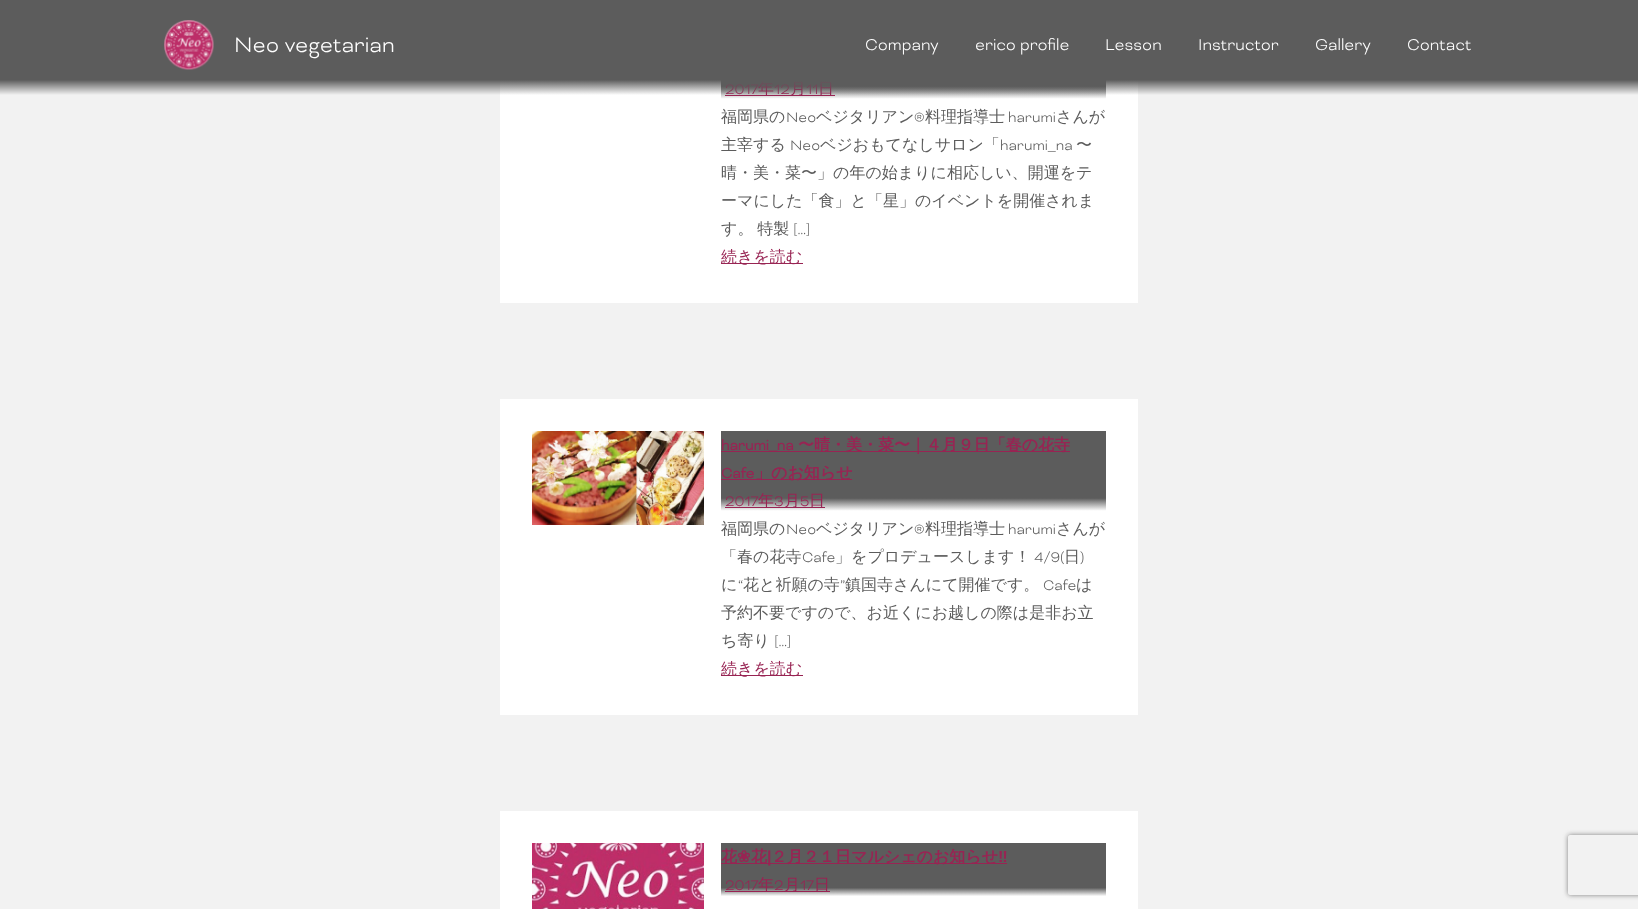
async function draw(canvas) {
	canvas.width = 1638;
	canvas.height = 909;
	const c = canvas.getContext('2d');
	c.miterLimit = 4;
	c.fontKerning = 'normal';
	async function loadImage(src) {
		const img = new Image();
		img.src = src;
		await img.decode();
		return img;
	}
	let gradient;

	c.fillStyle = '#f2f2f2';
	c.fillRect(0, 0, 1638, 909);
	c.fillStyle = '#fff';
	c.fillRect(500, 80, 638, 223);
	gradient = c.createLinearGradient(914, 103, 914, 19);
	gradient.addColorStop(0.05, '#fff');
	gradient.addColorStop(0.2, '#5c5c5c');
	c.fillStyle = gradient;
	c.fillRect(721, 80, 385, 19);
	c.font = '300 16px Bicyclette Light';
	c.fillStyle = '#982453';
	c.fillText('2017', 725, 94);
	c.fillRect(725, 95, 110, 1);
	c.font = '500 16px WenQuanYi Zen Hei';
	c.fillText('年', 758, 94);
	c.font = '300 16px Bicyclette Light';
	c.fillText('12', 774, 94);
	c.font = '500 16px WenQuanYi Zen Hei';
	c.fillText('月', 790, 94);
	c.font = '300 16px Bicyclette Light';
	c.fillText('11', 806, 94);
	c.font = '500 16px WenQuanYi Zen Hei';
	c.fillText('日', 818, 94);
	gradient = c.createLinearGradient(819, 100, 819, 0);
	gradient.addColorStop(0.05, '#5c5c5c00');
	gradient.addColorStop(0.2, '#5c5c5c');
	c.fillStyle = gradient;
	c.fillRect(0, 0, 1638, 95);
	c.drawImage(await loadImage('img1.png'), 164, 20, 50, 50);
	c.font = '300 24px Bicyclette Light';
	c.fillStyle = '#fff';
	c.fillText('Neo vegetarian', 234, 52);
	c.font = '300 18px Bicyclette Light';
	for (const [text, x, y] of [
		['Company', 865, 50],
		['erico profile', 975, 50],
		['Lesson', 1105, 50],
		['Instructor', 1198, 50],
		['Gallery', 1315, 50],
		['Contact', 1407, 50],
	]) {
		c.fillText(text, x, y);
	}
	c.font = '500 16px WenQuanYi Zen Hei';
	c.fillStyle = '#5c5c5c';
	c.fillText('福岡県の', 721, 122);
	c.font = '300 16px Bicyclette Light';
	c.fillText('Neo', 786, 122);
	c.font = '500 16px WenQuanYi Zen Hei';
	c.fillText('ベジタリアン', 816, 122);
	c.font = '300 16px Bicyclette Light';
	c.fillText('®', 914, 122);
	c.font = '500 16px WenQuanYi Zen Hei';
	c.fillText('料理指導士', 925, 122);
	c.font = '300 16px Bicyclette Light';
	c.fillText('harumi', 1008, 122);
	c.font = '500 16px WenQuanYi Zen Hei';
	c.fillText('さんが', 1056, 122);
	c.fillText('主宰する', 721, 150);
	c.font = '300 16px Bicyclette Light';
	c.fillText('Neo', 790, 150);
	c.font = '500 16px WenQuanYi Zen Hei';
	c.fillText('ベジおもてなしサロン「', 820, 150);
	c.font = '300 16px Bicyclette Light';
	c.fillText('harumi_na', 1000, 150);
	c.font = '500 16px WenQuanYi Zen Hei';
	for (const [text, x, y] of [
		['〜', 1076, 150],
		['晴・美・菜〜」の年の始まりに相応しい、開運をテ', 721, 178],
		['ーマにした「食」と「星」のイベントを開催されま', 721, 206],
	]) {
		c.fillText(text, x, y);
	}
	c.wordSpacing = '-1px';
	c.fillText('す。 特製', 721, 234);
	c.wordSpacing = '0px';
	c.font = '300 16px Bicyclette Light';
	c.fillText('[…]', 793, 234);
	c.fillStyle = '#982453';
	c.fillRect(721, 263, 82, 1);
	c.font = '500 16px WenQuanYi Zen Hei';
	c.fillText('続きを読む', 721, 262);
	c.fillStyle = '#fff';
	c.fillRect(500, 399, 638, 316);
	c.drawImage(await loadImage('img2.png'), 532, 431, 172, 94);
	gradient = c.createLinearGradient(914, 515, 914, 431);
	gradient.addColorStop(0.05, '#fff');
	gradient.addColorStop(0.2, '#5c5c5c');
	c.fillStyle = gradient;
	c.fillRect(721, 431, 385, 80);
	c.fillStyle = '#982453';
	c.fillRect(721, 451, 349, 1);
	c.font = 'bold 16px Bicyclette Light';
	c.fillText('harumi_na', 721, 450);
	c.font = 'bold 16px WenQuanYi Zen Hei';
	c.fillText('〜晴・美・菜〜｜４月９日「春の花寺', 798, 450);
	c.font = 'bold 16px Bicyclette Light';
	c.fillText('Cafe', 721, 478);
	c.fillRect(721, 479, 131, 1);
	c.font = 'bold 16px WenQuanYi Zen Hei';
	c.fillText('」のお知らせ', 755, 478);
	c.font = '300 16px Bicyclette Light';
	c.fillText('2017', 725, 506);
	c.fillRect(725, 507, 100, 1);
	c.font = '500 16px WenQuanYi Zen Hei';
	c.fillText('年', 758, 506);
	c.font = '300 16px Bicyclette Light';
	c.fillText('3', 774, 506);
	c.font = '500 16px WenQuanYi Zen Hei';
	c.fillText('月', 784, 506);
	c.font = '300 16px Bicyclette Light';
	c.fillText('5', 800, 506);
	c.font = '500 16px WenQuanYi Zen Hei';
	c.fillText('日', 809, 506);
	c.fillStyle = '#5c5c5c';
	c.fillText('福岡県の', 721, 534);
	c.font = '300 16px Bicyclette Light';
	c.fillText('Neo', 786, 534);
	c.font = '500 16px WenQuanYi Zen Hei';
	c.fillText('ベジタリアン', 816, 534);
	c.font = '300 16px Bicyclette Light';
	c.fillText('®', 914, 534);
	c.font = '500 16px WenQuanYi Zen Hei';
	c.fillText('料理指導士', 925, 534);
	c.font = '300 16px Bicyclette Light';
	c.fillText('harumi', 1008, 534);
	c.font = '500 16px WenQuanYi Zen Hei';
	c.fillText('さんが', 1056, 534);
	c.fillText('「春の花寺', 721, 562);
	c.font = '300 16px Bicyclette Light';
	c.fillText('Cafe', 802, 562);
	c.font = '500 16px WenQuanYi Zen Hei';
	c.fillText('」をプロデュースします！', 835, 562);
	c.font = '300 16px Bicyclette Light';
	c.fillText('4/9(', 1034, 562);
	c.font = '500 16px WenQuanYi Zen Hei';
	c.fillText('日', 1064, 562);
	c.font = '300 16px Bicyclette Light';
	c.fillText(')', 1080, 562);
	c.font = '500 16px WenQuanYi Zen Hei';
	c.fillText('に', 721, 590);
	c.font = '300 16px Bicyclette Light';
	c.fillText('“', 738, 590);
	c.font = '500 16px WenQuanYi Zen Hei';
	c.fillText('花と祈願の寺', 743, 590);
	c.font = '300 16px Bicyclette Light';
	c.fillText('”', 840, 590);
	c.font = '500 16px WenQuanYi Zen Hei';
	c.fillText('鎮国寺さんにて開催です。', 845, 590);
	c.font = '300 16px Bicyclette Light';
	c.fillText('Cafe', 1043, 590);
	c.font = '500 16px WenQuanYi Zen Hei';
	for (const [text, x, y] of [
		['は', 1076, 590],
		['予約不要ですので、お近くにお越しの際は是非お立', 721, 618],
		['ち寄り', 721, 646],
	]) {
		c.fillText(text, x, y);
	}
	c.font = '300 16px Bicyclette Light';
	c.fillText('[…]', 774, 646);
	c.fillStyle = '#982453';
	c.fillRect(721, 675, 82, 1);
	c.font = '500 16px WenQuanYi Zen Hei';
	c.fillText('続きを読む', 721, 674);
	c.fillStyle = '#fff';
	c.fillRect(500, 811, 638, 98);
	c.drawImage(await loadImage('img3.png'), 532, 843, 172, 66);
	gradient = c.createLinearGradient(914, 899, 914, 843);
	gradient.addColorStop(0.05, '#fff');
	gradient.addColorStop(0.2, '#5c5c5c');
	c.fillStyle = gradient;
	c.fillRect(721, 843, 385, 53);
	c.fillStyle = '#982453';
	c.fillRect(721, 863, 286, 1);
	c.font = 'bold 16px WenQuanYi Zen Hei';
	c.fillText('花', 721, 862);
	c.font = 'bold 16px DejaVu Sans';
	c.fillText('❀', 737, 862);
	c.font = 'bold 16px WenQuanYi Zen Hei';
	c.fillText('花', 751, 862);
	c.font = 'bold 16px Liberation Sans';
	c.fillText('|', 767, 862);
	c.font = 'bold 16px WenQuanYi Zen Hei';
	c.fillText('２月２１日マルシェのお知らせ', 771, 862);
	c.font = 'bold 16px Liberation Sans';
	c.fillText('‼︎', 998, 862);
	c.font = '300 16px Bicyclette Light';
	c.fillText('2017', 725, 890);
	c.fillRect(725, 891, 105, 1);
	c.font = '500 16px WenQuanYi Zen Hei';
	c.fillText('年', 758, 890);
	c.font = '300 16px Bicyclette Light';
	c.fillText('2', 774, 890);
	c.font = '500 16px WenQuanYi Zen Hei';
	c.fillText('月', 784, 890);
	c.font = '300 16px Bicyclette Light';
	c.fillText('17', 800, 890);
	c.font = '500 16px WenQuanYi Zen Hei';
	c.fillText('日', 814, 890);
	c.save();
	c.beginPath();
	c.moveTo(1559, 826);
	c.lineTo(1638, 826);
	c.lineTo(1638, 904);
	c.lineTo(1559, 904);
	c.closePath();
	c.moveTo(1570, 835);
	c.lineTo(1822, 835);
	c.bezierCurveTo(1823, 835, 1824, 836, 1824, 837);
	c.lineTo(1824, 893);
	c.bezierCurveTo(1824, 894, 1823, 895, 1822, 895);
	c.lineTo(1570, 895);
	c.bezierCurveTo(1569, 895, 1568, 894, 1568, 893);
	c.lineTo(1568, 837);
	c.bezierCurveTo(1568, 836, 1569, 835, 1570, 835);
	c.closePath();
	c.clip('evenodd');
	c.fillStyle = '#808080';
	c.filter = 'blur(2.5px)';
	c.beginPath();
	c.roundRect(1568, 835, 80, 60, 2);
	c.fill();
	c.filter = 'none';
	c.restore();
}

draw(document.querySelector('canvas'));
